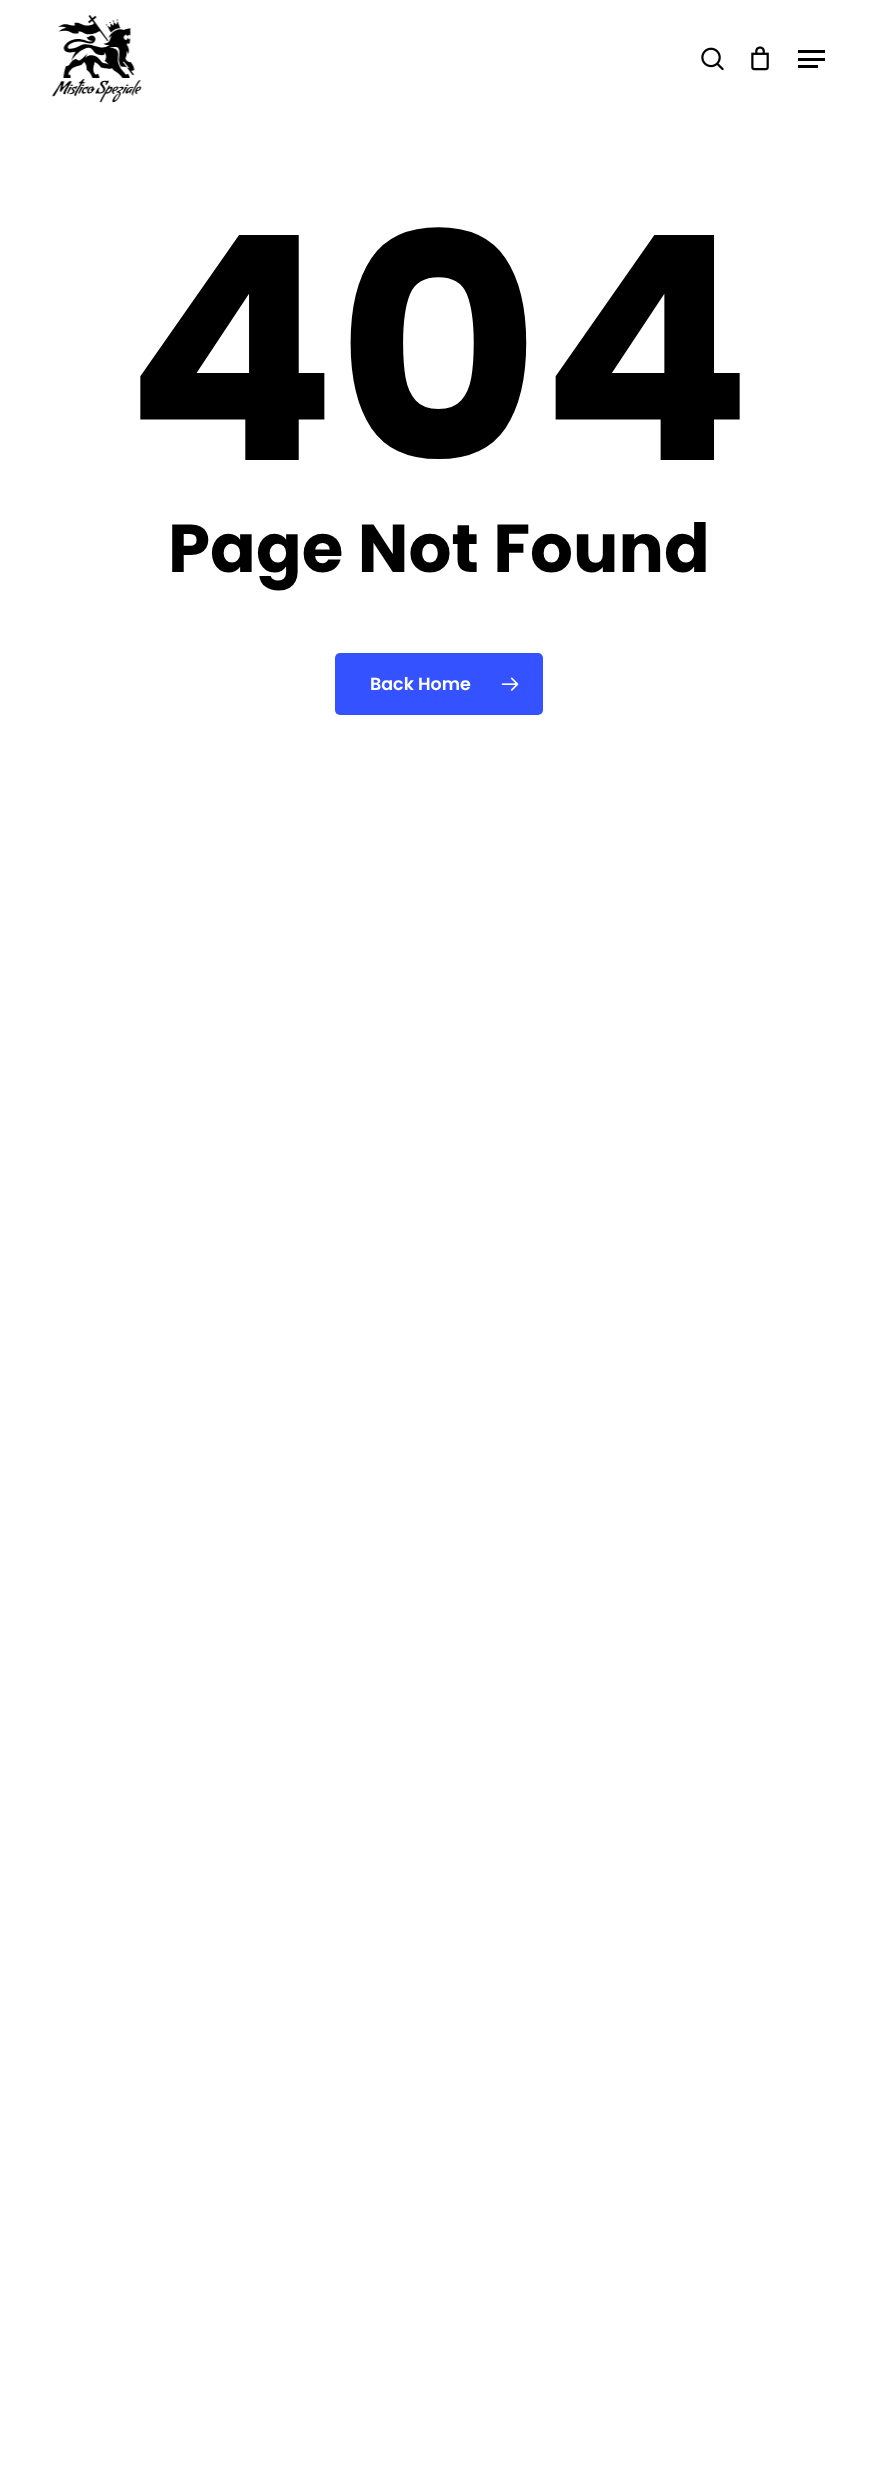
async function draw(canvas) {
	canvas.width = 877;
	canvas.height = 2471;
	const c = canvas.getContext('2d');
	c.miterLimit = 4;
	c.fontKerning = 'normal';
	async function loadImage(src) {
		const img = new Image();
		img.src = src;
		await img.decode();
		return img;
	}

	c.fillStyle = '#fff';
	c.fillRect(0, 0, 877, 2471);
	c.drawImage(await loadImage('img1.png'), 52, 15, 90, 88);
	c.drawImage(await loadImage('img2.png'), 701, 47, 23, 24);
	c.drawImage(await loadImage('img3.png'), 751, 46, 18, 25);
	for (const [x, y, w, h, color] of [
		[798, 50, 27, 3, '#000'],
		[798, 65, 20, 3, '#000'],
		[798, 58, 27, 3, '#000'],
	]) {
		c.fillStyle = color;
		c.fillRect(x, y, w, h);
	}
	c.font = 'bold 312.5px Poppins';
	c.fillText('404', 125, 460);
	c.font = 'bold 67.5px Poppins';
	c.fillText('Page Not Found', 168, 572);
	c.fillStyle = '#3452ff';
	c.beginPath();
	c.roundRect(335, 653, 208, 62, 5);
	c.fill();
	c.font = '600 17.5px Poppins';
	c.fillStyle = '#fff';
	c.fillText('Back Home', 370, 690);
	c.drawImage(await loadImage('img4.png'), 501, 677, 18, 14);
}

draw(document.querySelector('canvas'));
